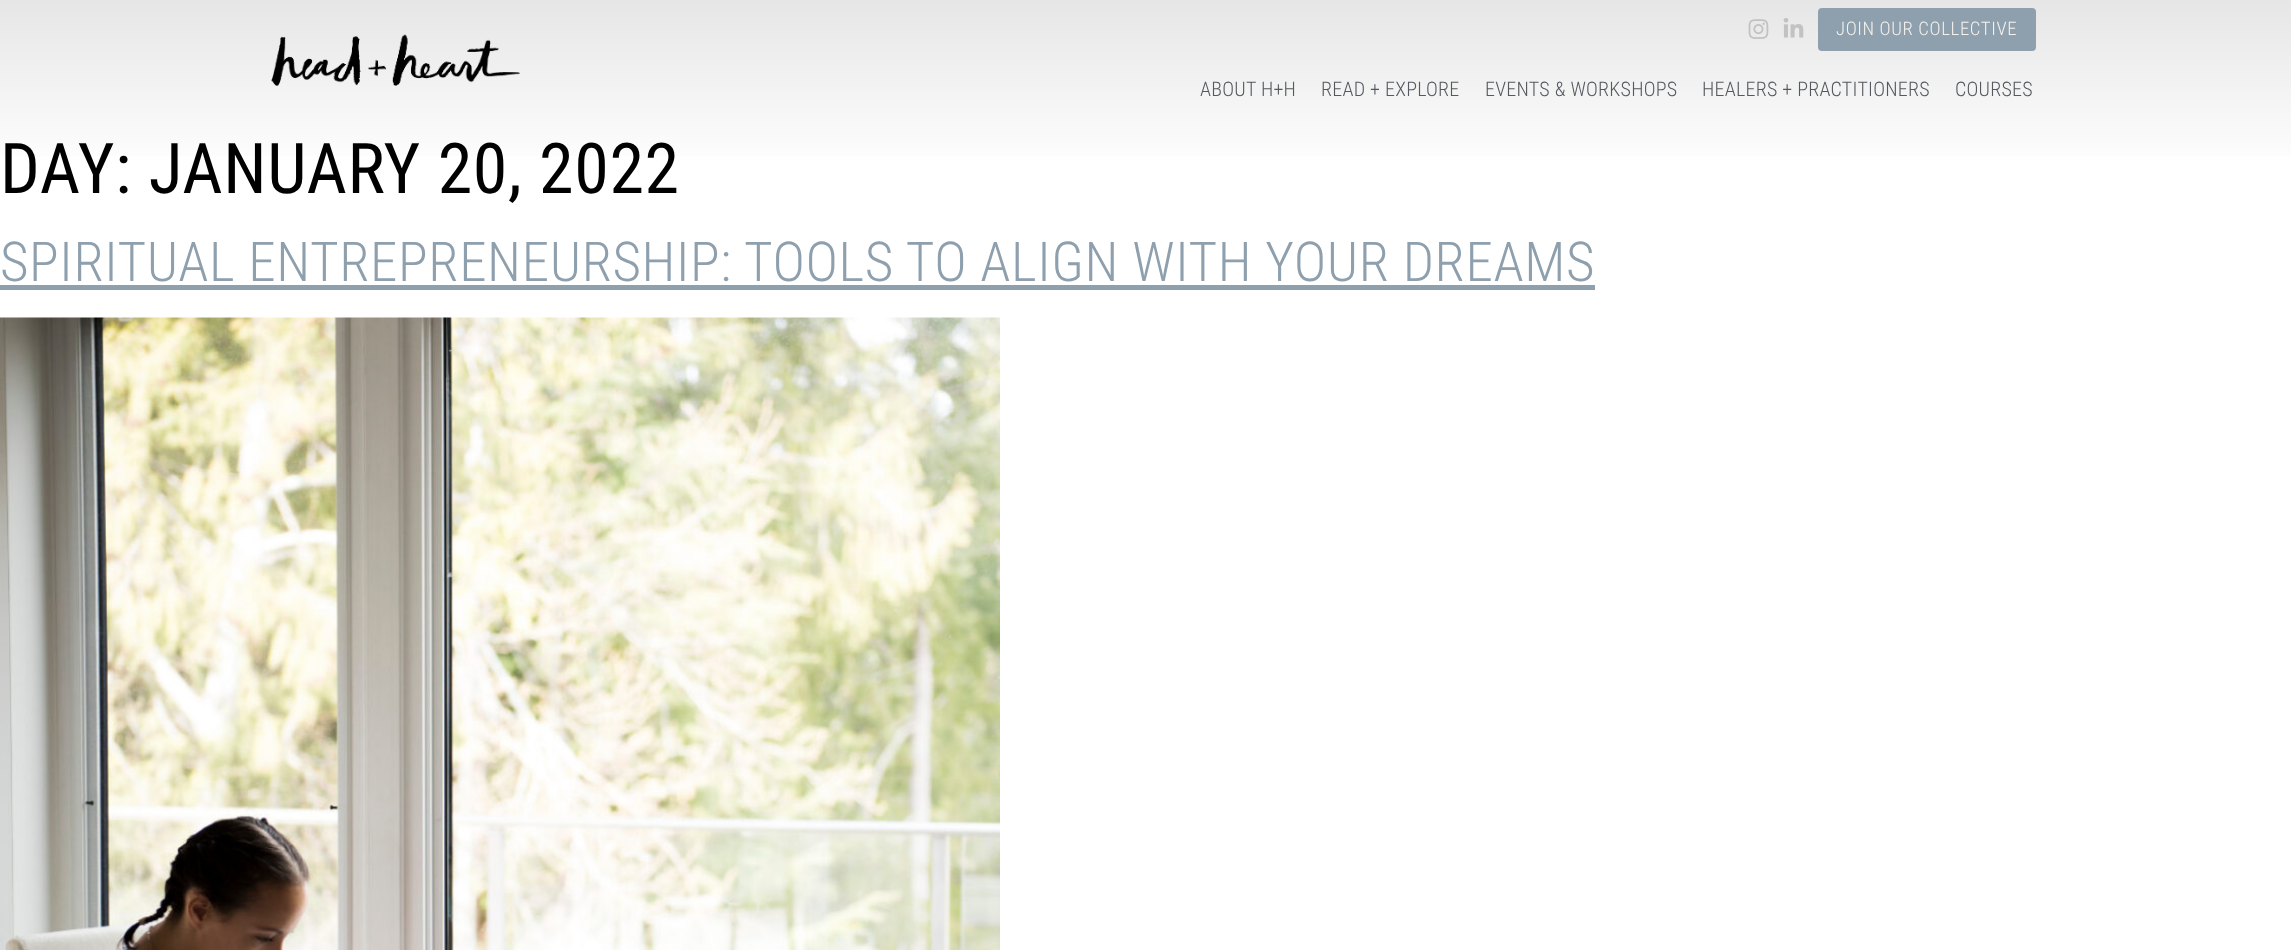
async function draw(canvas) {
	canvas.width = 2291;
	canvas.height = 950;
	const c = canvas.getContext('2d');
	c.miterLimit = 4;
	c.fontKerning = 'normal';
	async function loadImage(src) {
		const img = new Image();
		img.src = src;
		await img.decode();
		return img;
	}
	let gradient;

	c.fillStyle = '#fff';
	c.fillRect(0, 0, 2291, 950);
	gradient = c.createLinearGradient(1146, 0, 1146, 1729);
	gradient.addColorStop(0, '#e6e6e6');
	gradient.addColorStop(0.1, '#fff');
	c.fillStyle = gradient;
	c.fillRect(0, 0, 2291, 156);
	c.drawImage(await loadImage('img1.png'), 271, 34, 249, 52);
	c.drawImage(await loadImage('img2.png'), 1748, 19, 21, 20);
	c.drawImage(await loadImage('img3.png'), 1783, 18, 21, 20);
	c.fillStyle = '#8e9fad';
	c.beginPath();
	c.roundRect(1818, 8, 218, 43, 4);
	c.fill();
	c.letterSpacing = '0.62px';
	c.font = '300 18.75px Roboto Condensed';
	c.fillStyle = '#f5f2ec';
	c.fillText('JOIN OUR COLLECTIVE', 1836, 35);
	c.letterSpacing = '0.25px';
	c.font = '300 20px Roboto Condensed';
	c.fillStyle = '#54595f';
	for (const [text, x, y] of [
		['ABOUT H+H', 1200, 96],
		['READ + EXPLORE', 1321, 96],
		['EVENTS & WORKSHOPS', 1485, 96],
		['HEALERS + PRACTITIONERS', 1702, 96],
		['COURSES', 1955, 96],
	]) {
		c.fillText(text, x, y);
	}
	c.letterSpacing = '0.62px';
	c.font = '70px Roboto Condensed';
	c.fillStyle = '#000';
	c.fillText('DAY: JANUARY 20, 2022', 0, 193);
	c.font = '300 55px Roboto Condensed';
	c.fillStyle = '#8e9fad';
	c.fillText('SPIRITUAL ENTREPRENEURSHIP: TOOLS TO ALIGN WITH YOUR DREAMS', 0, 281);
	c.fillRect(0, 285, 1595, 5);
	c.drawImage(await loadImage('img4.png'), 0, 317, 1000, 633);
}

draw(document.querySelector('canvas'));
